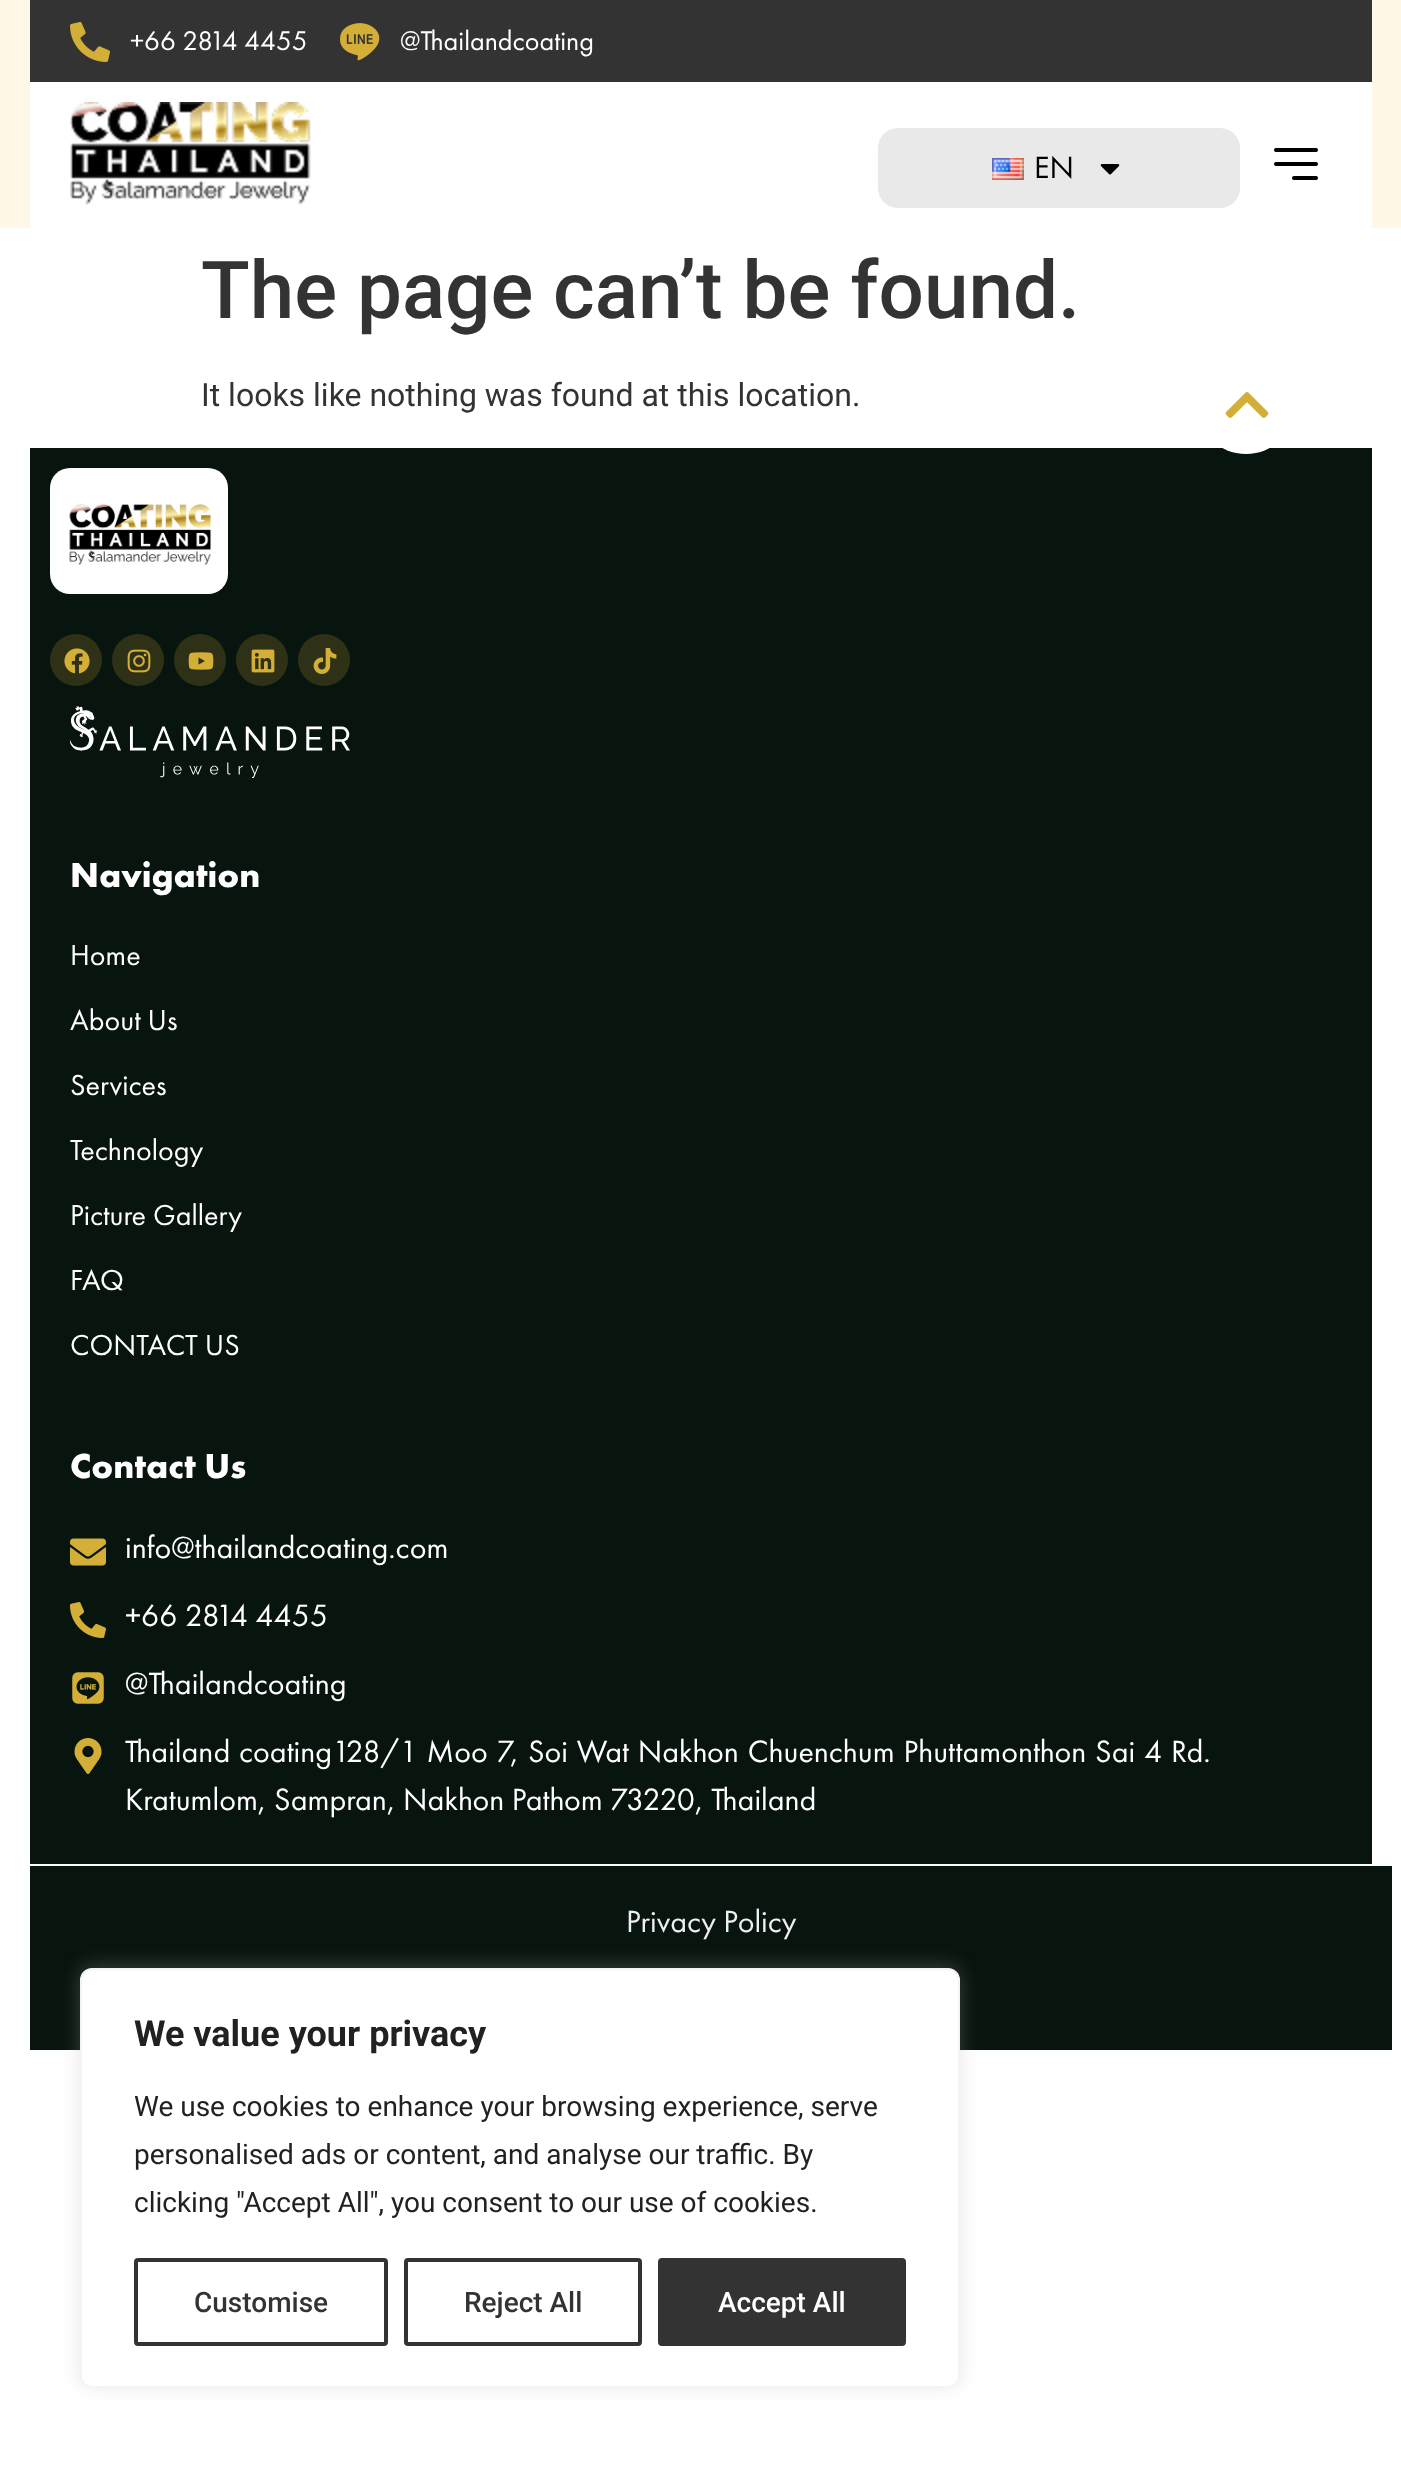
async function draw(canvas) {
	canvas.width = 1401;
	canvas.height = 2467;
	const c = canvas.getContext('2d');
	c.miterLimit = 4;
	c.fontKerning = 'normal';
	async function loadImage(src) {
		const img = new Image();
		img.src = src;
		await img.decode();
		return img;
	}

	c.fillStyle = '#fff';
	c.fillRect(0, 0, 1401, 2467);
	c.fillStyle = '#fff8e8';
	c.fillRect(0, 0, 1401, 228);
	c.fillStyle = '#333';
	c.fillRect(30, 0, 1342, 82);
	c.drawImage(await loadImage('img1.png'), 70, 22, 40, 40);
	c.font = '28px Futura PT';
	c.fillStyle = '#fff';
	c.fillText('+66 2814 4455', 130, 50);
	c.drawImage(await loadImage('img2.png'), 340, 23, 40, 38);
	c.fillText('@Thailandcoating', 400, 50);
	c.fillRect(30, 82, 1342, 146);
	c.drawImage(await loadImage('img3.png'), 70, 102, 241, 103);
	c.fillStyle = '#e9e9e9';
	c.beginPath();
	c.roundRect(878, 128, 362, 80, 20);
	c.fill();
	c.drawImage(await loadImage('img4.png'), 992, 158, 32, 22);
	c.font = '32px Futura PT';
	c.fillStyle = '#010101';
	c.fillText('EN', 1034, 178);
	c.drawImage(await loadImage('img5.png'), 1100, 164, 20, 11);
	c.fillStyle = '#000';
	c.beginPath();
	c.roundRect(1274, 148, 44, 4, 2);
	c.fill();
	c.beginPath();
	c.roundRect(1274, 162, 44, 4, 2);
	c.fill();
	c.beginPath();
	c.roundRect(1292, 176, 26, 4, 2);
	c.fill();
	c.font = '500 80px Roboto';
	c.fillStyle = '#333';
	c.fillText('The page can’t be found.', 201, 318);
	c.font = '32px Roboto';
	c.fillText('It looks like nothing was found at this location.', 201, 406);
	c.fillStyle = '#08140e';
	c.fillRect(30, 448, 1342, 1416);
	c.fillStyle = '#fff';
	c.beginPath();
	c.roundRect(50, 468, 178, 126, 20);
	c.fill();
	c.drawImage(await loadImage('img6.png'), 69, 504, 143, 61);
	c.fillStyle = '#2f3116';
	c.beginPath();
	c.arc(76, 660, 26, 0, 2 * Math.PI);
	c.fill();
	c.drawImage(await loadImage('img7.png'), 64, 648, 26, 26);
	c.beginPath();
	c.arc(138, 660, 26, 0, 2 * Math.PI);
	c.fill();
	c.drawImage(await loadImage('img8.png'), 127, 649, 24, 24);
	c.beginPath();
	c.arc(200, 660, 26, 0, 2 * Math.PI);
	c.fill();
	c.drawImage(await loadImage('img9.png'), 188, 652, 26, 18);
	c.beginPath();
	c.arc(262, 660, 26, 0, 2 * Math.PI);
	c.fill();
	c.drawImage(await loadImage('img10.png'), 251, 649, 24, 24);
	c.beginPath();
	c.arc(324, 660, 26, 0, 2 * Math.PI);
	c.fill();
	c.drawImage(await loadImage('img11.png'), 313, 648, 24, 26);
	c.drawImage(await loadImage('img12.png'), 70, 706, 280, 72);
	c.font = 'bold 36px Futura PT';
	c.fillStyle = '#fff';
	c.fillText('Navigation', 70, 887);
	c.font = '30px Futura PT';
	for (const [text, x, y] of [
		['Home', 70, 965],
		['About Us', 70, 1030],
		['Services', 70, 1095],
		['Technology', 70, 1160],
		['Picture Gallery', 70, 1225],
		['FAQ', 70, 1290],
		['CONTACT US', 70, 1355],
	]) {
		c.fillText(text, x, y);
	}
	c.beginPath();
	c.arc(1246, 404, 50, 0, 2 * Math.PI);
	c.fill();
	c.drawImage(await loadImage('img13.png'), 1225, 392, 44, 26);
	c.font = 'bold 36px Futura PT';
	c.fillText('Contact Us', 70, 1478);
	c.drawImage(await loadImage('img14.png'), 70, 1538, 36, 28);
	c.font = '32px Futura PT';
	c.fillText('info@thailandcoating.com', 125, 1558);
	c.drawImage(await loadImage('img15.png'), 70, 1602, 36, 36);
	c.fillText('+66 2814 4455', 125, 1626);
	c.drawImage(await loadImage('img16.png'), 72, 1672, 32, 32);
	c.fillText('@Thailandcoating', 125, 1694);
	c.drawImage(await loadImage('img17.png'), 74, 1738, 28, 36);
	c.wordSpacing = '1.4px';
	c.fillText('Thailand coating128/1 Moo 7, Soi Wat Nakhon Chuenchum Phuttamonthon Sai 4 Rd.', 125, 1762);
	c.wordSpacing = '0px';
	c.fillText('Kratumlom, Sampran, Nakhon Pathom 73220, Thailand', 125, 1810);
	c.fillStyle = '#08140e';
	c.fillRect(30, 1866, 1362, 184);
	c.fillStyle = '#eeeff1';
	c.fillText('Privacy Policy', 626, 1932);
	c.fillStyle = '#acabab4d';
	c.filter = 'blur(10px)';
	c.beginPath();
	c.roundRect(80, 1966, 880, 420, 12);
	c.fill();
	c.filter = 'none';
	c.fillStyle = '#fff';
	c.beginPath();
	c.roundRect(81, 1969, 878, 418, 11);
	c.fill();
	c.strokeStyle = '#f4f4f4';
	c.lineWidth = 2;
	c.stroke();
	c.font = 'bold 36px Roboto';
	c.fillStyle = '#212121';
	c.fillText('We value your privacy', 134, 2046);
	c.font = '28px Roboto';
	for (const [text, x, y] of [
		['We use cookies to enhance your browsing experience, serve', 134, 2116],
		['personalised ads or content, and analyse our traffic. By', 134, 2164],
		['clicking "Accept All", you consent to our use of cookies.', 134, 2212],
	]) {
		c.fillText(text, x, y);
	}
	c.beginPath();
	c.roundRect(136, 2260, 250, 84, 2);
	c.strokeStyle = '#333';
	c.lineWidth = 4;
	c.stroke();
	c.font = '500 28px Roboto';
	c.fillStyle = '#333';
	c.fillText('Customise', 194, 2312);
	c.beginPath();
	c.roundRect(406, 2260, 234, 84, 2);
	c.stroke();
	c.fillText('Reject All', 464, 2312);
	c.beginPath();
	c.roundRect(660, 2260, 244, 84, 2);
	c.fill();
	c.stroke();
	c.fillStyle = '#fff';
	c.fillText('Accept All', 718, 2312);
}

draw(document.querySelector('canvas'));
